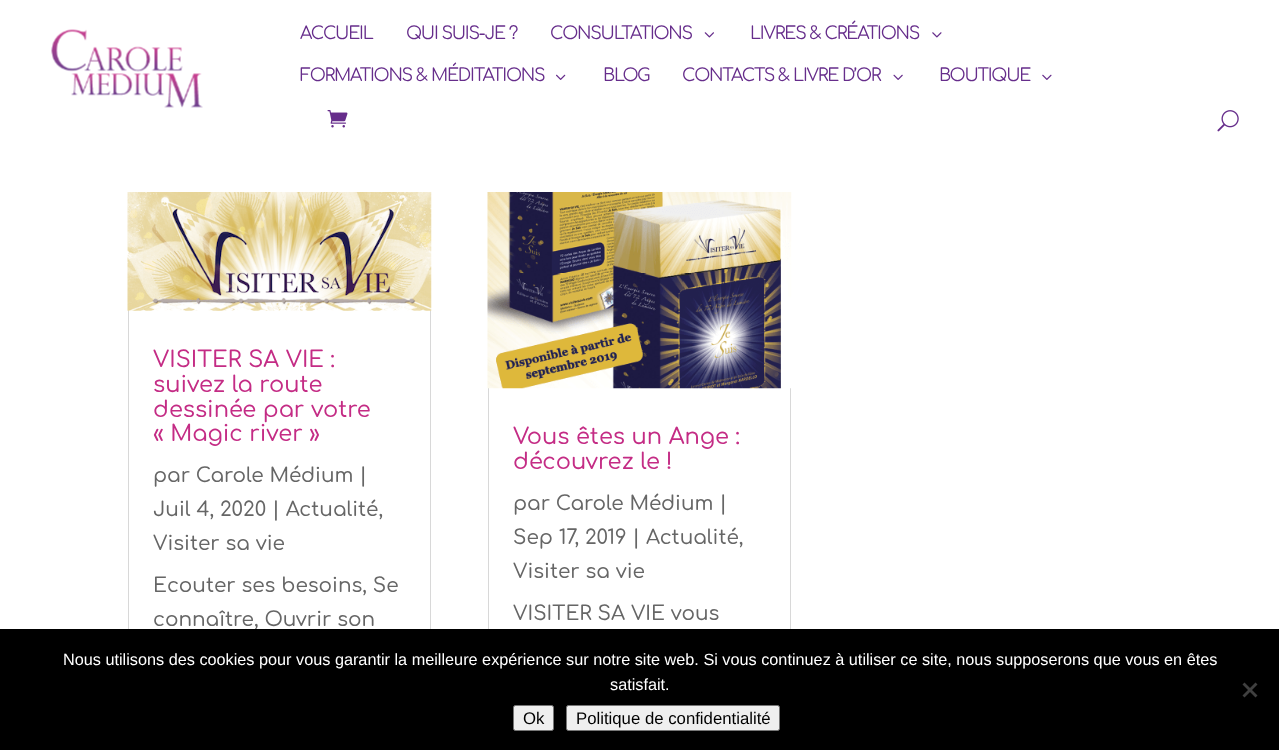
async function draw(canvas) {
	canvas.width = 1279;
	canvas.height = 750;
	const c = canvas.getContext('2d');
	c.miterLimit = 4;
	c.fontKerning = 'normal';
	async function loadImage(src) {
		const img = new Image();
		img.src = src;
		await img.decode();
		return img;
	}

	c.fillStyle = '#fff';
	c.fillRect(0, 0, 1279, 750);
	c.drawImage(await loadImage('img1.png'), 51, 29, 152, 79);
	c.letterSpacing = '-1.25px';
	c.font = '17.5px Comfortaa';
	c.fillStyle = '#662d8b';
	for (const [text, x, y] of [
		['ACCUEIL', 300, 39],
		['QUI SUIS-JE ?', 406, 39],
		['CONSULTATIONS', 550, 39],
	]) {
		c.fillText(text, x, y);
	}
	c.drawImage(await loadImage('img2.png'), 704, 32, 10, 6);
	c.fillText('LIVRES & CRÉATIONS', 750, 39);
	c.drawImage(await loadImage('img3.png'), 932, 32, 10, 6);
	c.fillText('FORMATIONS & MÉDITATIONS', 300, 81);
	c.drawImage(await loadImage('img4.png'), 556, 74, 10, 6);
	c.fillText('BLOG', 603, 81);
	c.fillText('CONTACTS & LIVRE D’OR', 682, 81);
	c.drawImage(await loadImage('img5.png'), 893, 74, 10, 6);
	c.fillText('BOUTIQUE', 939, 81);
	c.drawImage(await loadImage('img6.png'), 1042, 74, 10, 6);
	c.drawImage(await loadImage('img7.png'), 327, 110, 21, 18);
	c.drawImage(await loadImage('img8.png'), 1217, 110, 22, 22);
	c.strokeStyle = '#d8d8d8';
	c.strokeRect(128.5, 193.5, 302, 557);
	c.drawImage(await loadImage('img9.png'), 127, 192, 305, 119);
	c.letterSpacing = '0px';
	c.font = '500 22.5px Comfortaa';
	c.fillStyle = '#c42c85';
	for (const [text, x, y] of [
		['VISITER SA VIE :', 153, 367],
		['suivez la route', 153, 392],
		['dessinée par votre', 153, 417],
		['« Magic river »', 153, 441],
	]) {
		c.fillText(text, x, y);
	}
	c.font = '500 20px Comfortaa';
	c.fillStyle = '#666';
	for (const [text, x, y] of [
		['par Carole Médium |', 153, 482],
		['Juil 4, 2020 | Actualité,', 153, 516],
		['Visiter sa vie', 153, 550],
		['Ecouter ses besoins, Se', 153, 592],
		['connaître, Ouvrir son', 153, 626],
	]) {
		c.fillText(text, x, y);
	}
	c.strokeRect(488.5, 193.5, 302, 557);
	c.drawImage(await loadImage('img10.png'), 487, 192, 305, 197);
	c.font = '500 22.5px Comfortaa';
	c.fillStyle = '#c42c85';
	c.fillText('Vous êtes un Ange :', 513, 444);
	c.fillText('découvrez le !', 513, 469);
	c.font = '500 20px Comfortaa';
	c.fillStyle = '#666';
	for (const [text, x, y] of [
		['par Carole Médium |', 513, 510],
		['Sep 17, 2019 | Actualité,', 513, 544],
		['Visiter sa vie', 513, 578],
		['VISITER SA VIE vous', 513, 620],
	]) {
		c.fillText(text, x, y);
	}
	c.fillStyle = '#000';
	c.fillRect(0, 629, 1279, 121);
	c.font = '16.25px Liberation Sans';
	c.fillStyle = '#fff';
	c.fillText('Nous utilisons des cookies pour vous garantir la meilleure expérience sur notre site web. Si vous continuez à utiliser ce site, nous supposerons que vous en êtes', 63, 665);
	c.fillText('satisfait.', 610, 690);
	c.fillStyle = '#404040';
	c.beginPath();
	c.moveTo(1255.5, 682.5);
	c.lineTo(1257.5, 684.5);
	c.lineTo(1244.5, 697.5);
	c.lineTo(1242.5, 695.5);
	c.closePath();
	c.fill();
	c.beginPath();
	c.moveTo(1242.5, 684.5);
	c.lineTo(1244.5, 682.5);
	c.lineTo(1257.5, 695.5);
	c.lineTo(1255.5, 697.5);
	c.closePath();
	c.fill();
	c.fillStyle = '#efefef';
	c.beginPath();
	c.roundRect(513.5, 705.5, 40, 25, 2);
	c.fill();
	c.strokeStyle = '#767676';
	c.stroke();
	c.font = '16.75px Liberation Sans';
	c.fillStyle = '#000';
	c.fillText('Ok', 523, 724);
	c.fillStyle = '#efefef';
	c.beginPath();
	c.roundRect(566.5, 705.5, 213, 25, 2);
	c.fill();
	c.stroke();
	c.fillStyle = '#000';
	c.fillText('Politique de confidentialité', 576, 724);
}

draw(document.querySelector('canvas'));
